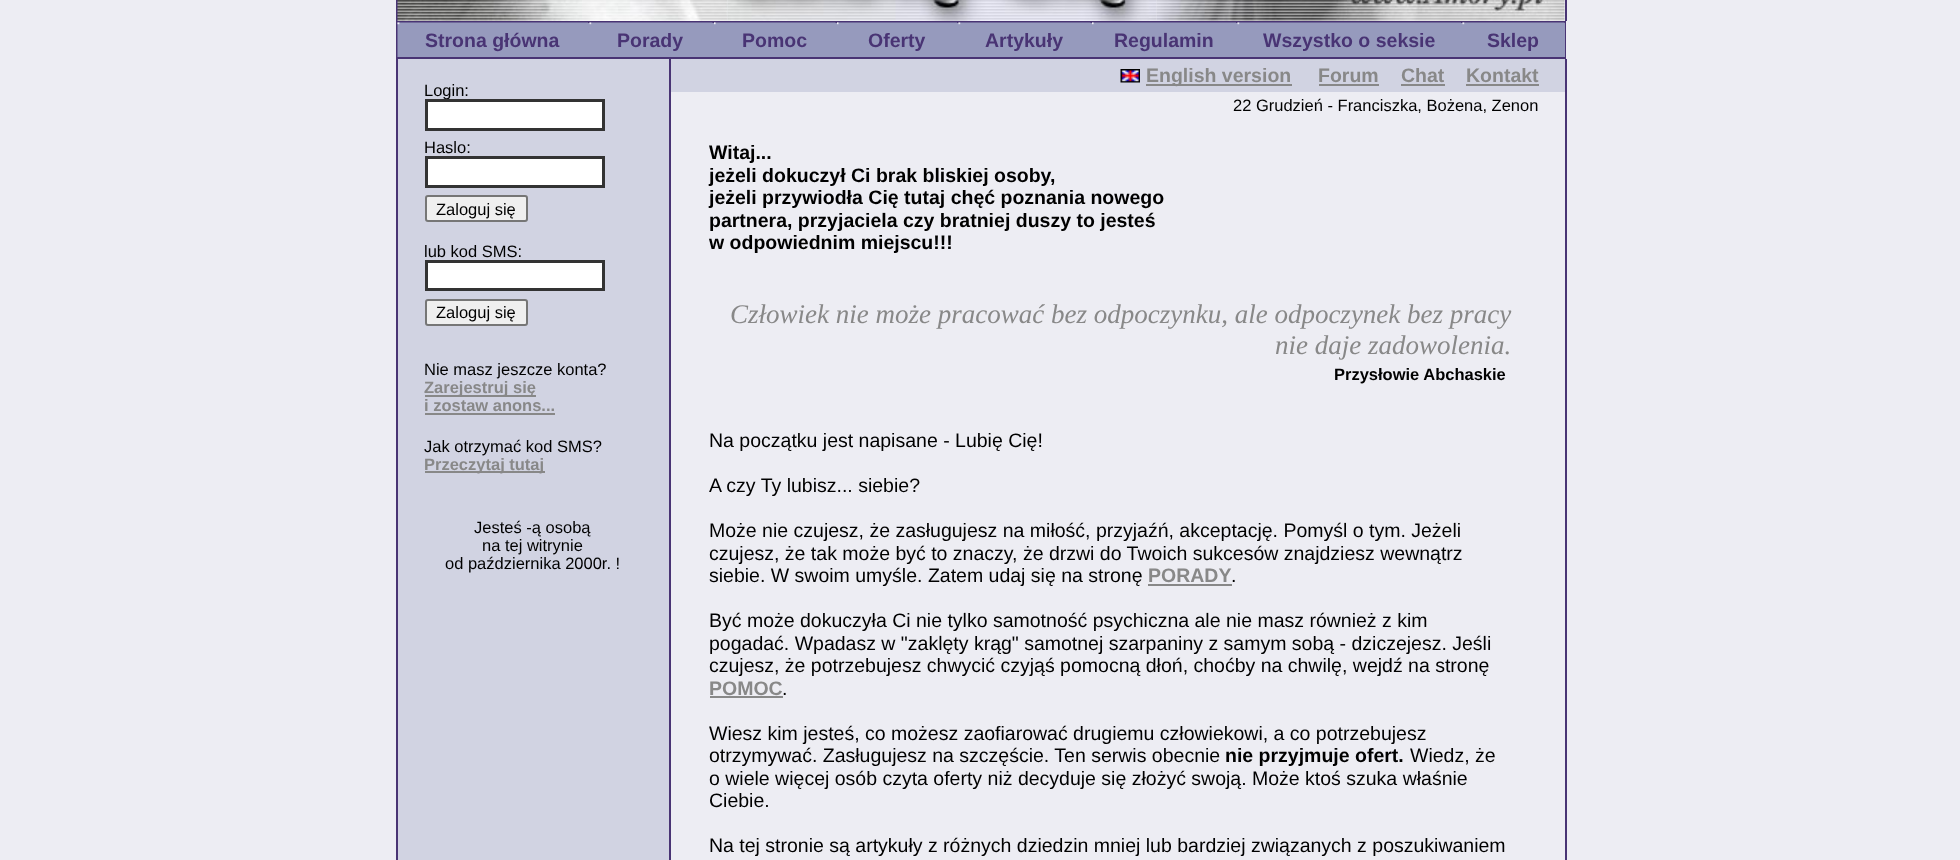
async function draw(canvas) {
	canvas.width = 1960;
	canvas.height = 860;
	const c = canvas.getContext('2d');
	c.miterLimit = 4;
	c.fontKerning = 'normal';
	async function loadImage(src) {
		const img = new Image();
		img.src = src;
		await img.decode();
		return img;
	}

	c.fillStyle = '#ededf3';
	c.fillRect(0, 0, 1960, 860);
	c.fillStyle = '#493474';
	c.fillRect(396, 0, 2, 21);
	c.drawImage(await loadImage('img1.png'), 397, 0, 185, 21);
	c.drawImage(await loadImage('img2.png'), 582, 0, 146, 21);
	c.drawImage(await loadImage('img3.png'), 727, 0, 254, 21);
	c.drawImage(await loadImage('img4.png'), 981, 0, 176, 21);
	c.drawImage(await loadImage('img5.png'), 1156, 0, 191, 21);
	c.drawImage(await loadImage('img6.png'), 1347, 0, 218, 21);
	for (const [x, y, w, h, color] of [
		[1565, 0, 2, 21, '#493474'],
		[396, 21, 1170, 38, '#493474'],
		[588, 23, 977, 34, '#969abd'],
	]) {
		c.fillStyle = color;
		c.fillRect(x, y, w, h);
	}
	c.drawImage(await loadImage('img7.png'), 397, 22, 191, 35);
	c.font = 'bold 19.5px Liberation Sans';
	c.fillStyle = '#493474';
	c.fillText('Strona główna', 425, 47);
	c.drawImage(await loadImage('img8.png'), 589, 22, 124, 3);
	c.fillText('Porady', 617, 47);
	c.drawImage(await loadImage('img9.png'), 714, 22, 122, 3);
	c.fillText('Pomoc', 742, 47);
	c.drawImage(await loadImage('img10.png'), 837, 22, 120, 3);
	c.fillText('Oferty', 868, 47);
	c.drawImage(await loadImage('img11.png'), 958, 22, 133, 3);
	c.fillText('Artykuły', 985, 47);
	c.drawImage(await loadImage('img12.png'), 1092, 22, 144, 3);
	c.fillText('Regulamin', 1114, 47);
	c.drawImage(await loadImage('img13.png'), 1237, 22, 224, 3);
	c.fillText('Wszystko o seksie', 1263, 47);
	c.drawImage(await loadImage('img14.png'), 1462, 22, 103, 3);
	c.fillText('Sklep', 1487, 47);
	c.fillRect(396, 59, 2, 801);
	c.fillStyle = '#d1d3e2';
	c.fillRect(398, 59, 271, 801);
	c.font = '16.5px Liberation Sans';
	c.fillStyle = '#000';
	c.fillText('Login:', 424, 96);
	c.fillStyle = '#fff';
	c.beginPath();
	c.rect(426.5, 100.5, 177, 29);
	c.fill();
	c.strokeStyle = '#333';
	c.lineWidth = 3;
	c.stroke();
	c.fillStyle = '#000';
	c.fillText('Haslo:', 424, 153);
	c.fillStyle = '#fff';
	c.beginPath();
	c.rect(426.5, 157.5, 177, 29);
	c.fill();
	c.stroke();
	c.fillStyle = '#efefef';
	c.beginPath();
	c.roundRect(426, 196, 101, 25, 2);
	c.fill();
	c.strokeStyle = '#767676';
	c.lineWidth = 2;
	c.stroke();
	c.fillStyle = '#000';
	c.fillText('Zaloguj się', 436, 215);
	c.fillText('lub kod SMS:', 424, 257);
	c.fillStyle = '#fff';
	c.beginPath();
	c.rect(426.5, 261.5, 177, 28);
	c.fill();
	c.strokeStyle = '#333';
	c.lineWidth = 3;
	c.stroke();
	c.fillStyle = '#efefef';
	c.beginPath();
	c.roundRect(426, 300, 101, 25, 2);
	c.fill();
	c.strokeStyle = '#767676';
	c.lineWidth = 2;
	c.stroke();
	c.fillStyle = '#000';
	c.fillText('Zaloguj się', 436, 318);
	c.fillText('Nie masz jeszcze konta?', 424, 375);
	c.fillStyle = '#888';
	c.fillRect(425, 395, 111, 2);
	c.font = 'bold 16.5px Liberation Sans';
	c.fillText('Zarejestruj się', 424, 393);
	c.fillText('i zostaw anons...', 424, 411);
	c.fillRect(425, 413, 130, 2);
	c.font = '16.5px Liberation Sans';
	c.fillStyle = '#000';
	c.fillText('Jak otrzymać kod SMS?', 424, 452);
	c.fillStyle = '#888';
	c.fillRect(425, 471, 120, 2);
	c.font = 'bold 16.5px Liberation Sans';
	c.fillText('Przeczytaj tutaj', 424, 470);
	c.font = '16.5px Liberation Sans';
	c.fillStyle = '#000';
	for (const [text, x, y] of [
		['Jesteś -ą osobą', 474, 533],
		['na tej witrynie', 482, 551],
		['od października 2000r. !', 445, 569],
	]) {
		c.fillText(text, x, y);
	}
	c.fillStyle = '#493474';
	c.fillRect(669, 59, 2, 801);
	c.fillStyle = '#d1d3e2';
	c.fillRect(671, 59, 894, 33);
	c.drawImage(await loadImage('img15.png'), 1120, 69, 20, 14);
	c.fillStyle = '#888';
	c.fillRect(1146, 84, 146, 2);
	c.font = 'bold 19.5px Liberation Sans';
	c.fillText('English version', 1146, 82);
	c.fillText('Forum', 1318, 82);
	c.fillRect(1319, 84, 60, 2);
	c.fillText('Chat', 1401, 82);
	c.fillRect(1401, 84, 44, 2);
	c.fillText('Kontakt', 1466, 82);
	c.fillRect(1466, 84, 73, 2);
	c.font = '16.5px Liberation Sans';
	c.fillStyle = '#000';
	c.fillText('22 Grudzień - Franciszka, Bożena, Zenon', 1233, 111);
	c.font = 'bold 19.5px Liberation Sans';
	for (const [text, x, y] of [
		['Witaj...', 709, 159],
		['jeżeli dokuczył Ci brak bliskiej osoby,', 709, 182],
		['jeżeli przywiodła Cię tutaj chęć poznania nowego', 709, 204],
		['partnera, przyjaciela czy bratniej duszy to jesteś', 709, 227],
		['w odpowiednim miejscu!!!', 709, 249],
	]) {
		c.fillText(text, x, y);
	}
	c.font = 'italic 27px Liberation Serif';
	c.fillStyle = '#888';
	c.fillText('Człowiek nie może pracować bez odpoczynku, ale odpoczynek bez pracy', 730, 323);
	c.fillText('nie daje zadowolenia.', 1275, 354);
	c.font = 'bold 16.5px Liberation Sans';
	c.fillStyle = '#000';
	c.fillText('Przysłowie Abchaskie', 1334, 380);
	c.font = '19.5px Liberation Sans';
	for (const [text, x, y] of [
		['Na początku jest napisane - Lubię Cię!', 709, 447],
		['A czy Ty lubisz... siebie?', 709, 492],
		['Może nie czujesz, że zasługujesz na miłość, przyjaźń, akceptację. Pomyśl o tym. Jeżeli', 709, 537],
		['czujesz, że tak może być to znaczy, że drzwi do Twoich sukcesów znajdziesz wewnątrz', 709, 560],
		['siebie. W swoim umyśle. Zatem udaj się na stronę', 709, 582],
	]) {
		c.fillText(text, x, y);
	}
	c.font = 'bold 19.5px Liberation Sans';
	c.fillStyle = '#888';
	c.fillText('PORADY', 1148, 582);
	c.fillRect(1148, 584, 84, 2);
	c.font = '19.5px Liberation Sans';
	c.fillStyle = '#000';
	for (const [text, x, y] of [
		['.', 1231, 582],
		['Być może dokuczyła Ci nie tylko samotność psychiczna ale nie masz również z kim', 709, 627],
		['pogadać. Wpadasz w "zaklęty krąg" samotnej szarpaniny z samym sobą - dziczejesz. Jeśli', 709, 650],
		['czujesz, że potrzebujesz chwycić czyjąś pomocną dłoń, choćby na chwilę, wejdź na stronę', 709, 672],
	]) {
		c.fillText(text, x, y);
	}
	c.font = 'bold 19.5px Liberation Sans';
	c.fillStyle = '#888';
	c.fillText('POMOC', 709, 695);
	c.fillRect(710, 696, 73, 2);
	c.font = '19.5px Liberation Sans';
	c.fillStyle = '#000';
	for (const [text, x, y] of [
		['.', 782, 695],
		['Wiesz kim jesteś, co możesz zaofiarować drugiemu człowiekowi, a co potrzebujesz', 709, 740],
		['otrzymywać. Zasługujesz na szczęście. Ten serwis obecnie', 709, 762],
	]) {
		c.fillText(text, x, y);
	}
	c.font = 'bold 19.5px Liberation Sans';
	c.fillText('nie przyjmuje ofert.', 1225, 762);
	c.font = '19.5px Liberation Sans';
	for (const [text, x, y] of [
		['Wiedz, że', 1410, 762],
		['o wiele więcej osób czyta oferty niż decyduje się złożyć swoją. Może ktoś szuka właśnie', 709, 785],
		['Ciebie.', 709, 807],
		['Na tej stronie są artykuły z różnych dziedzin mniej lub bardziej związanych z poszukiwaniem', 709, 852],
	]) {
		c.fillText(text, x, y);
	}
	c.fillStyle = '#493474';
	c.fillRect(1565, 59, 2, 801);
}

draw(document.querySelector('canvas'));
